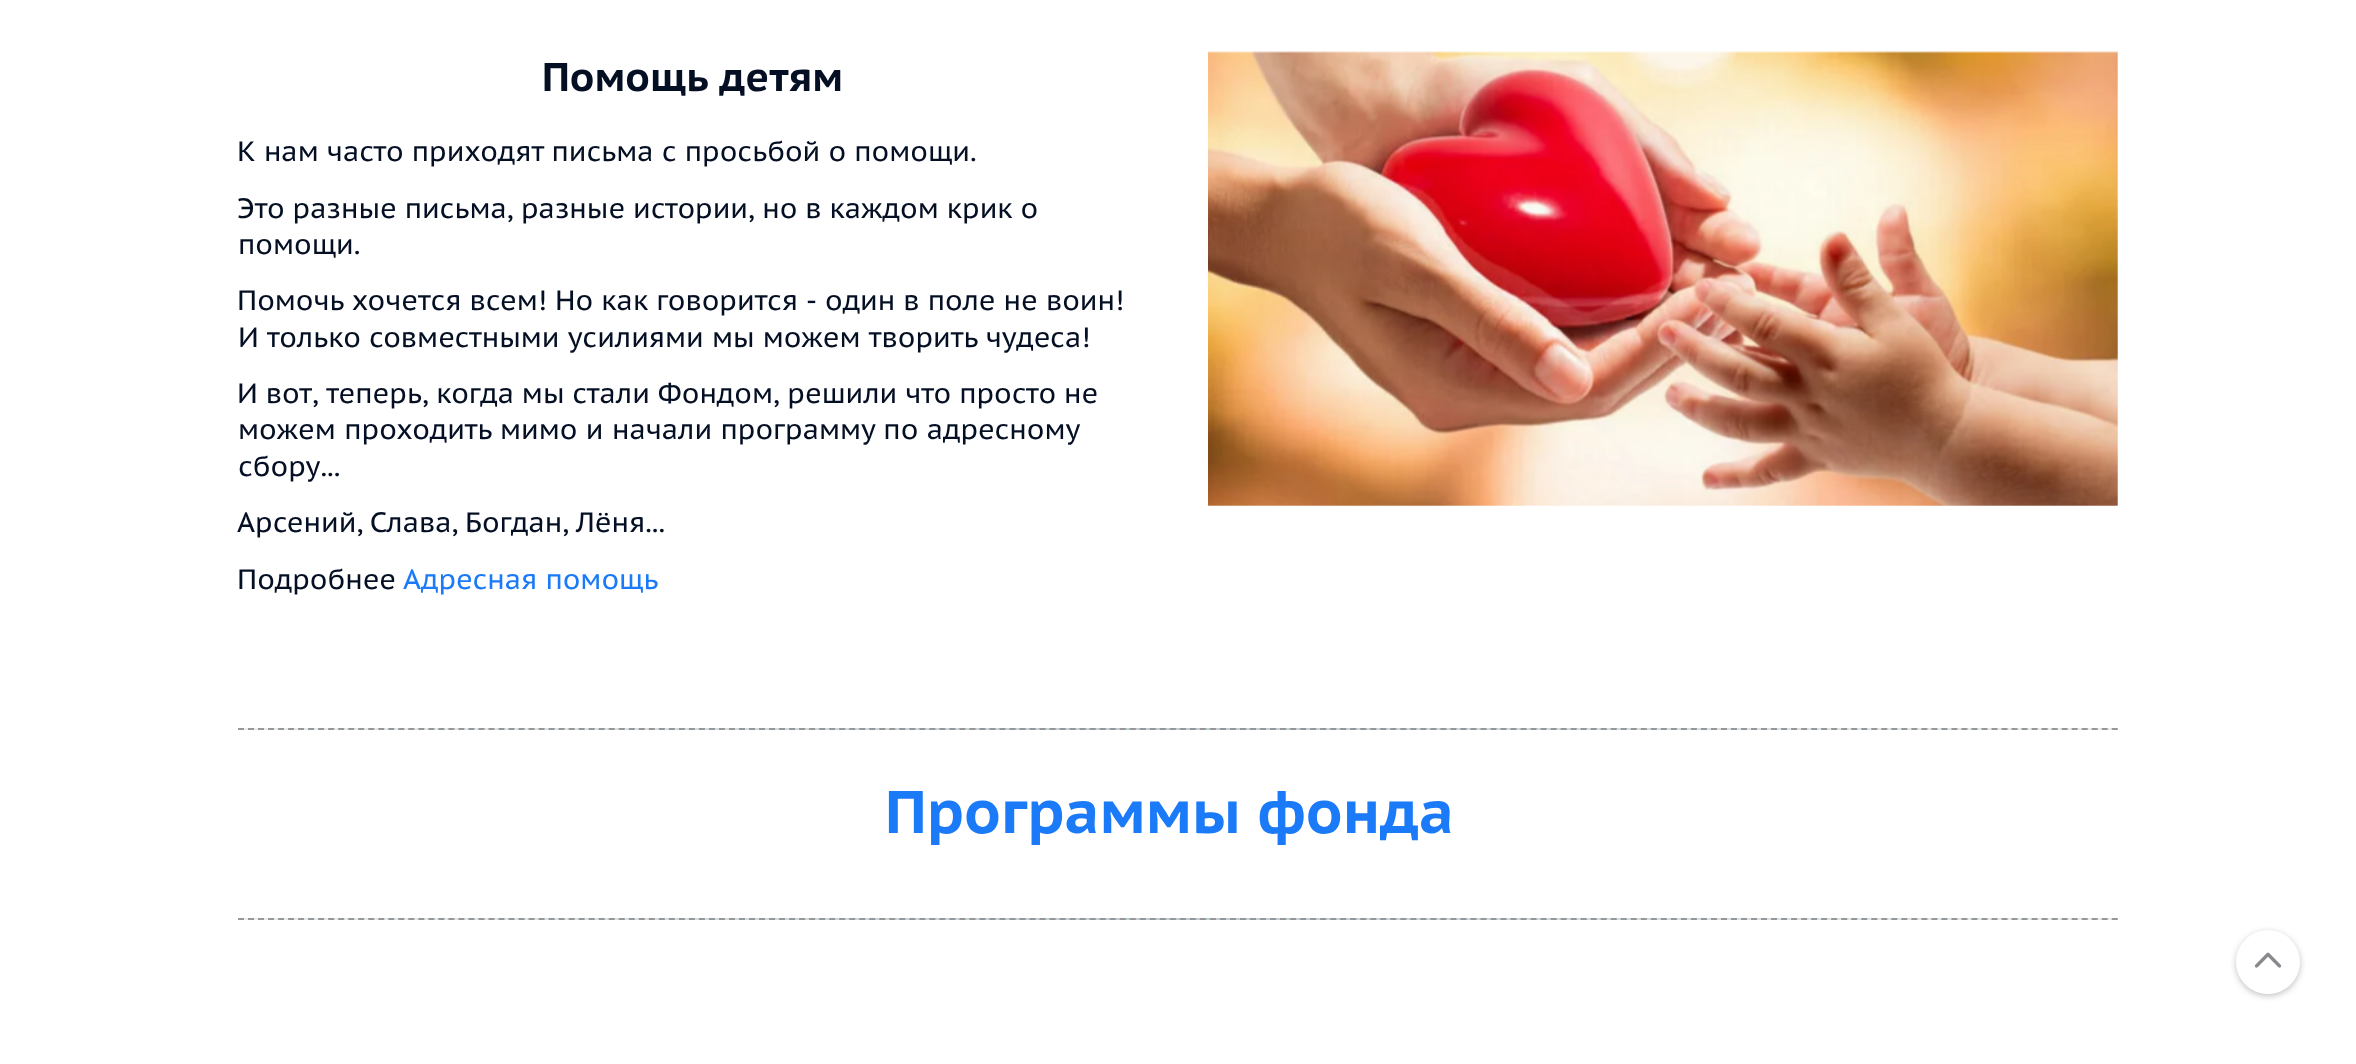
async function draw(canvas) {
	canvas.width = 2356;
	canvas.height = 1064;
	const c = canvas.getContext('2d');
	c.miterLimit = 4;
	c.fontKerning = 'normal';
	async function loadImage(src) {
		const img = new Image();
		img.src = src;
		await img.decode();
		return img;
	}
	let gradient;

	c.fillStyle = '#fff';
	c.fillRect(0, 0, 2356, 1064);
	c.wordSpacing = '1px';
	c.font = 'bold 40px PT Sans Caption';
	c.fillStyle = '#040f24';
	c.fillText('Помощь детям', 542, 91);
	c.wordSpacing = '0px';
	c.font = '28px PT Sans Caption';
	c.fillText('К нам часто приходят письма с просьбой о помощи.', 237, 161);
	c.wordSpacing = '-0.25px';
	c.fillText('Это разные письма, разные истории, но в каждом крик о', 237, 218);
	c.wordSpacing = '0px';
	c.fillText('помощи.', 238, 254);
	c.wordSpacing = '-0.1px';
	c.fillText('Помочь хочется всем! Но как говорится - один в поле не воин!', 237, 310);
	c.wordSpacing = '0px';
	c.fillText('И только совместными усилиями мы можем творить чудеса!', 238, 347);
	c.wordSpacing = '-0.25px';
	c.fillText('И вот, теперь, когда мы стали Фондом, решили что просто не', 237, 403);
	c.wordSpacing = '0.25px';
	c.fillText('можем проходить мимо и начали программу по адресному', 238, 439);
	c.wordSpacing = '0px';
	c.fillText('сбору...', 238, 476);
	c.wordSpacing = '-1px';
	c.fillText('Арсений, Слава, Богдан, Лёня...', 237, 532);
	c.wordSpacing = '0px';
	c.fillText('Подробнее', 237, 589);
	c.fillStyle = '#1a7af7';
	c.fillText('Адресная помощь', 403, 589);
	c.drawImage(await loadImage('img1.png'), 1208, 51, 910, 455);
	gradient = c.createLinearGradient(238, 729, 2118, 729);
	gradient.addColorStop(0, '#e8eef1');
	gradient.addColorStop(0.5, '#bbcbd4');
	gradient.addColorStop(1, '#e8eef1');
	c.fillStyle = gradient;
	c.fillRect(238, 728, 1880, 2);
	c.beginPath();
	c.moveTo(238, 729);
	c.lineTo(2118, 729);
	c.strokeStyle = '#979797';
	c.lineWidth = 2;
	c.setLineDash([6, 4.02]);
	c.stroke();
	c.font = 'bold 60px PT Sans Caption';
	c.fillStyle = '#1a7af7';
	c.fillText('Программы фонда', 885, 833);
	gradient = c.createLinearGradient(238, 919, 2118, 919);
	gradient.addColorStop(0, '#e8eef1');
	gradient.addColorStop(0.5, '#bbcbd4');
	gradient.addColorStop(1, '#e8eef1');
	c.fillStyle = gradient;
	c.fillRect(238, 918, 1880, 2);
	c.beginPath();
	c.moveTo(238, 919);
	c.lineTo(2118, 919);
	c.stroke();
	c.save();
	c.beginPath();
	c.moveTo(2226, 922);
	c.lineTo(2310, 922);
	c.lineTo(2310, 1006);
	c.lineTo(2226, 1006);
	c.closePath();
	c.moveTo(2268, 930);
	c.bezierCurveTo(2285.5, 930, 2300, 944.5, 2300, 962);
	c.bezierCurveTo(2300, 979.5, 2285.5, 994, 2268, 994);
	c.bezierCurveTo(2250.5, 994, 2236, 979.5, 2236, 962);
	c.bezierCurveTo(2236, 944.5, 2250.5, 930, 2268, 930);
	c.closePath();
	c.clip('evenodd');
	c.fillStyle = '#66666666';
	c.filter = 'blur(3px)';
	c.beginPath();
	c.roundRect(2236, 932, 64, 64, 32);
	c.fill();
	c.filter = 'none';
	c.restore();
	c.drawImage(await loadImage('img2.png'), 2254, 952, 28, 42);
}

draw(document.querySelector('canvas'));
